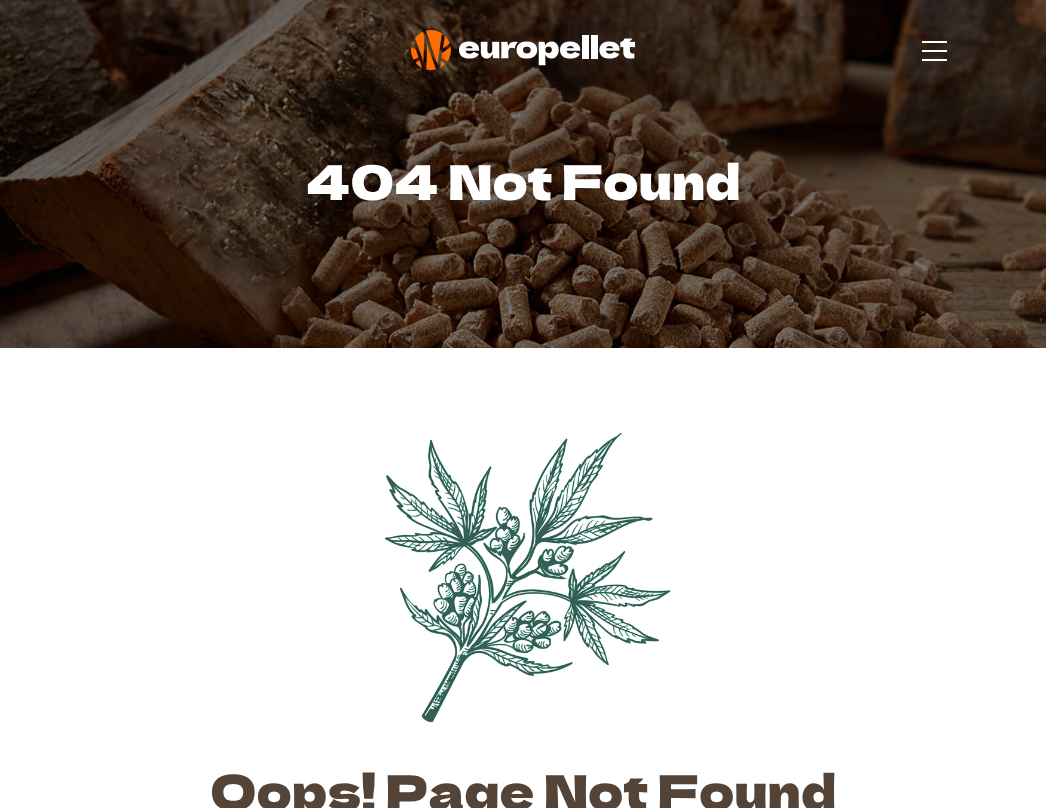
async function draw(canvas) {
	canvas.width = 1046;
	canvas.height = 808;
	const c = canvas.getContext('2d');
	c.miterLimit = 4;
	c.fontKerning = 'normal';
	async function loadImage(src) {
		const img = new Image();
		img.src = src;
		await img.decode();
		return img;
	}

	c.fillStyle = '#fff';
	c.fillRect(0, 0, 1046, 808);
	c.drawImage(await loadImage('img2.png'), 0, 0, 1046, 348);
	c.drawImage(await loadImage('img1.png'), 411, 30, 224, 40);
	for (const [x, y, w, h, color] of [
		[922, 41, 25, 2, '#fff'],
		[922, 50, 25, 2, '#fff'],
		[922, 59, 25, 2, '#fff'],
	]) {
		c.fillStyle = color;
		c.fillRect(x, y, w, h);
	}
	c.font = '48px Dela Gothic One';
	c.fillText('404 Not Found', 306, 200);
	c.drawImage(await loadImage('img3.png'), 384, 433, 287, 290);
	c.fillStyle = '#544337';
	c.fillText('Oops! Page Not Found', 210, 810);
}

draw(document.querySelector('canvas'));
